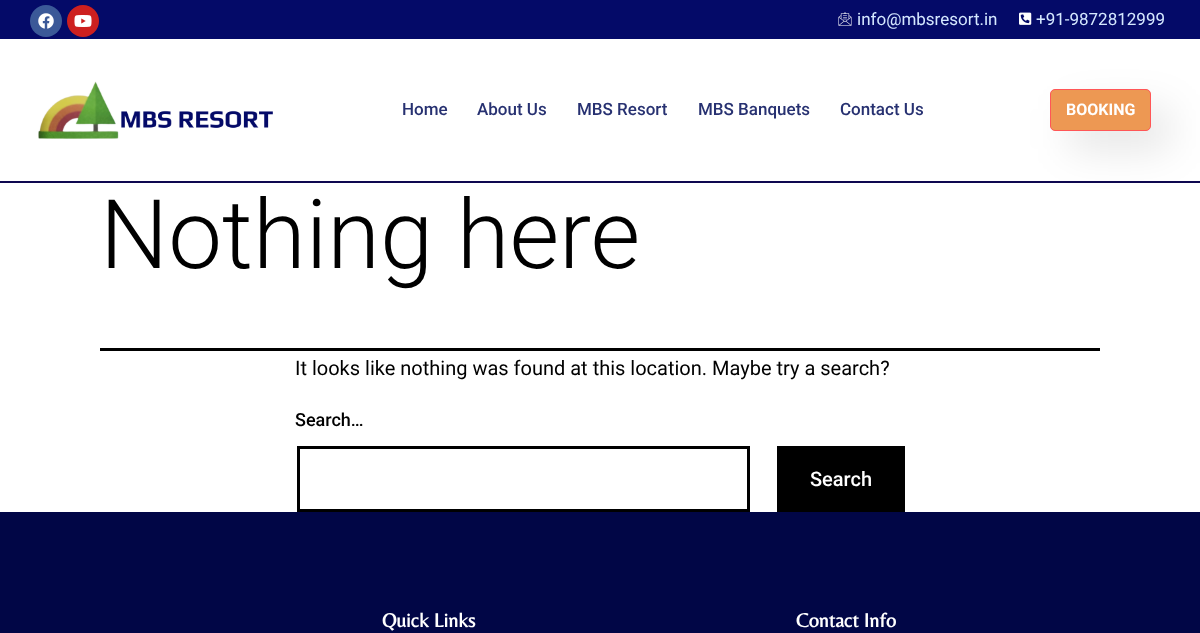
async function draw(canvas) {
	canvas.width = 1200;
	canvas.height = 633;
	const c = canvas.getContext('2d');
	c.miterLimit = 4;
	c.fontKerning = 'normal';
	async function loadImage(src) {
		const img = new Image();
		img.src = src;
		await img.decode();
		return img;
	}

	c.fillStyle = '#fff';
	c.fillRect(0, 0, 1200, 633);
	c.fillStyle = '#040a68';
	c.fillRect(0, 0, 1200, 39);
	c.fillStyle = '#3b5998';
	c.beginPath();
	c.arc(46, 21, 16, 0, 2 * Math.PI);
	c.fill();
	c.drawImage(await loadImage('img1.png'), 38, 13, 16, 16);
	c.fillStyle = '#cd201f';
	c.beginPath();
	c.arc(83, 21, 16, 0, 2 * Math.PI);
	c.fill();
	c.drawImage(await loadImage('img2.png'), 74, 15, 18, 12);
	c.drawImage(await loadImage('img3.png'), 838, 12, 14, 14);
	c.font = '17px Roboto';
	c.fillStyle = '#d5e8ff';
	c.fillText('info@mbsresort.in', 857, 25);
	c.drawImage(await loadImage('img4.png'), 1019, 12, 13, 13);
	c.fillText('+91-9872812999', 1036, 25);
	c.fillStyle = '#0e0850';
	c.fillRect(0, 181, 1200, 2);
	c.drawImage(await loadImage('img5.png'), 38, 81, 235, 58);
	c.font = '500 17px Roboto';
	c.fillStyle = '#273171';
	for (const [text, x, y] of [
		['Home', 402, 115],
		['About Us', 477, 115],
		['MBS Resort', 577, 115],
		['MBS Banquets', 698, 115],
		['Contact Us', 840, 115],
	]) {
		c.fillText(text, x, y);
	}
	c.fillStyle = '#0000001a';
	c.filter = 'blur(20px)';
	c.beginPath();
	c.roundRect(1069, 108, 101, 42, 5);
	c.fill();
	c.filter = 'none';
	c.fillStyle = '#ed9853';
	c.beginPath();
	c.roundRect(1050.5, 89.5, 100, 41, 4.5);
	c.fill();
	c.strokeStyle = '#ff5657';
	c.stroke();
	c.font = 'bold 16px Roboto';
	c.fillStyle = '#fff';
	c.fillText('BOOKING', 1066, 115);
	c.fillStyle = '#000';
	c.fillRect(100, 348, 1000, 3);
	c.font = '300 96px Roboto';
	c.fillText('Nothing here', 100, 268);
	c.font = '20px Roboto';
	c.fillText('It looks like nothing was found at this location. Maybe try a search?', 295, 375);
	c.font = '500 18px Roboto';
	c.fillText('Search…', 295, 426);
	c.strokeStyle = '#000';
	c.lineWidth = 3;
	c.strokeRect(298.5, 447.5, 450, 63);
	c.fillRect(777, 446, 128, 66);
	c.font = '500 20px Roboto';
	c.fillStyle = '#fff';
	c.fillText('Search', 810, 486);
	c.fillStyle = '#010646';
	c.fillRect(0, 512, 1200, 121);
	c.font = 'bold 20px Belleza';
	c.fillStyle = '#fff';
	c.fillText('Quick Links', 382, 627);
	c.fillText('Contact Info', 796, 627);
}

draw(document.querySelector('canvas'));
